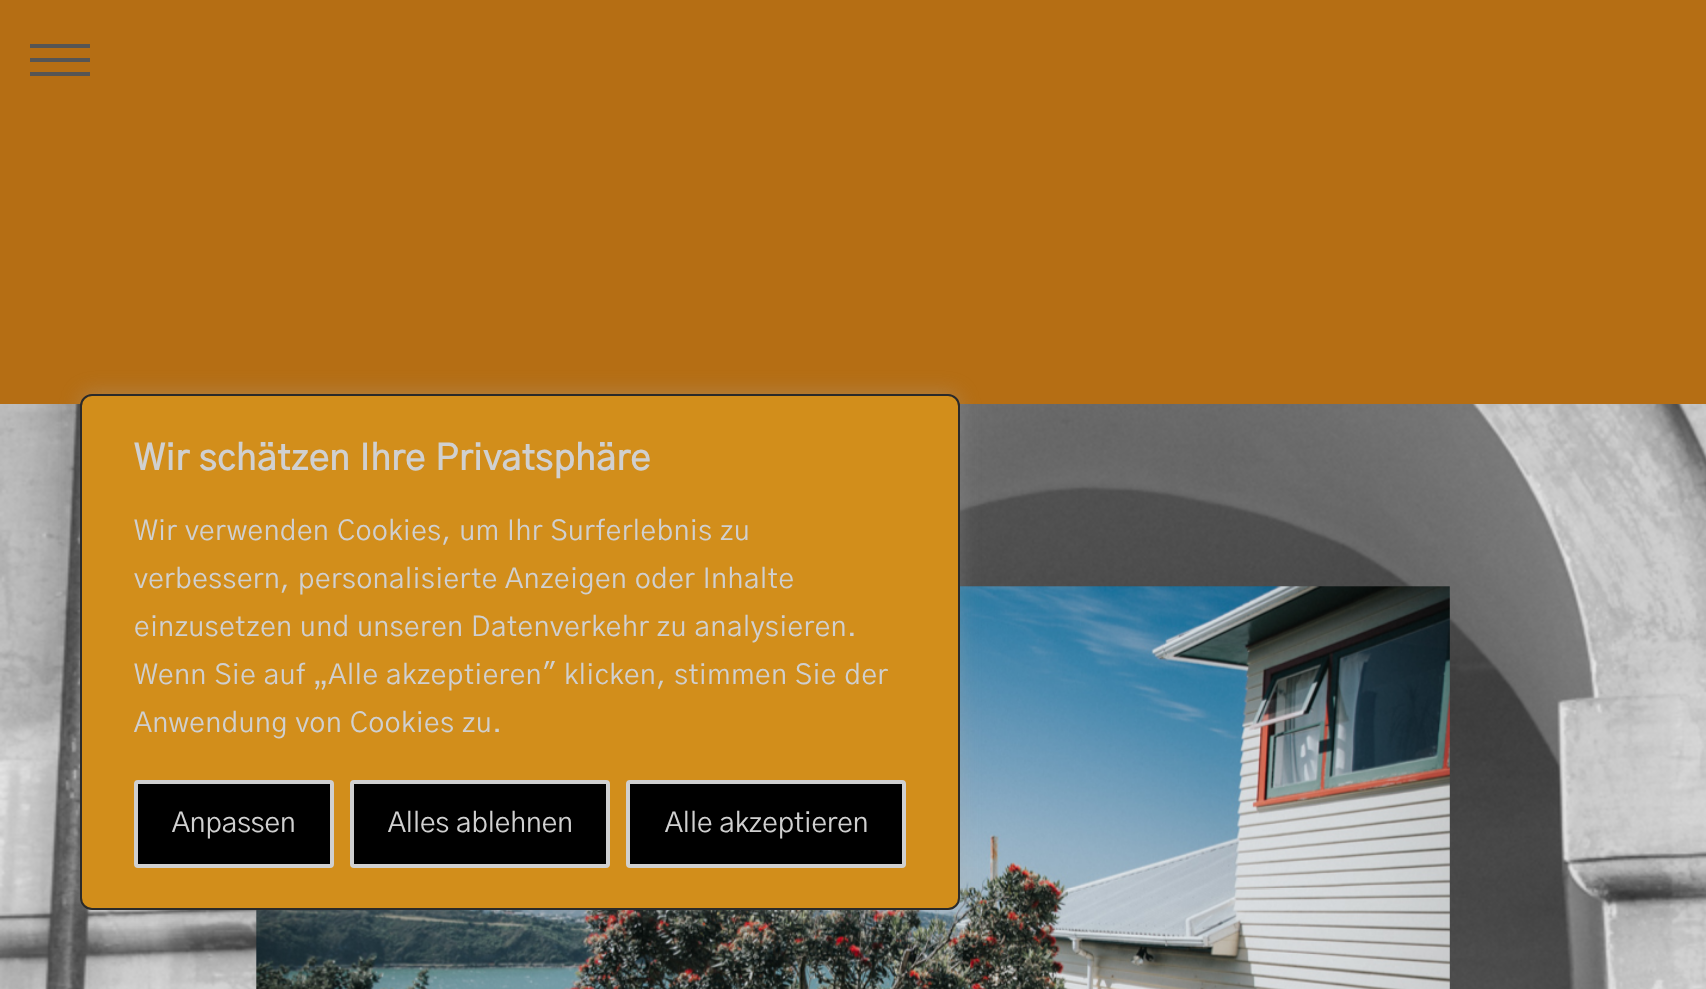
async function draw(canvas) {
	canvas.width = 1706;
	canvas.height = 989;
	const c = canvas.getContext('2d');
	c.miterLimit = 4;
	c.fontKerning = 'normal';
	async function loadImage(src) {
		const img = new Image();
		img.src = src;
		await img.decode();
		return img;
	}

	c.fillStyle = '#fff';
	c.fillRect(0, 0, 1706, 989);
	c.drawImage(await loadImage('img1.png'), 0, 404, 1706, 585);
	c.fillStyle = '#b56e14';
	c.fillRect(0, 0, 1706, 404);
	c.drawImage(await loadImage('img2.png'), 256, 586, 1194, 403);
	for (const [x, y, w, h, color] of [
		[30, 44, 60, 4, '#555'],
		[30, 58, 60, 4, '#555'],
		[30, 72, 60, 4, '#555'],
	]) {
		c.fillStyle = color;
		c.fillRect(x, y, w, h);
	}
	c.fillStyle = '#acabab4d';
	c.filter = 'blur(10px)';
	c.beginPath();
	c.roundRect(80, 392, 880, 516, 12);
	c.fill();
	c.filter = 'none';
	c.fillStyle = '#d28e1b';
	c.beginPath();
	c.roundRect(81, 395, 878, 514, 11);
	c.fill();
	c.strokeStyle = '#2a2a2a';
	c.lineWidth = 2;
	c.stroke();
	c.letterSpacing = '0.65px';
	c.font = 'bold 36px "Gothic A1"';
	c.fillStyle = '#d0d0d0';
	c.fillText('Wir schätzen Ihre Privatsphäre', 134, 470);
	c.font = '28px "Gothic A1"';
	for (const [text, x, y] of [
		['Wir verwenden Cookies, um Ihr Surferlebnis zu', 134, 540],
		['verbessern, personalisierte Anzeigen oder Inhalte', 134, 588],
		['einzusetzen und unseren Datenverkehr zu analysieren.', 134, 636],
		['Wenn Sie auf „Alle akzeptieren" klicken, stimmen Sie der', 134, 684],
		['Anwendung von Cookies zu.', 134, 732],
	]) {
		c.fillText(text, x, y);
	}
	c.fillStyle = '#000';
	c.beginPath();
	c.roundRect(136, 782, 196, 84, 2);
	c.fill();
	c.strokeStyle = '#d0d0d0';
	c.lineWidth = 4;
	c.stroke();
	c.letterSpacing = '0px';
	c.fillStyle = '#d0d0d0';
	c.fillText('Anpassen', 172, 832);
	c.fillStyle = '#000';
	c.beginPath();
	c.roundRect(352, 782, 256, 84, 2);
	c.fill();
	c.stroke();
	c.fillStyle = '#d0d0d0';
	c.fillText('Alles ablehnen', 388, 832);
	c.fillStyle = '#000';
	c.beginPath();
	c.roundRect(628, 782, 276, 84, 2);
	c.fill();
	c.stroke();
	c.fillStyle = '#d0d0d0';
	c.fillText('Alle akzeptieren', 665, 832);
}

draw(document.querySelector('canvas'));
